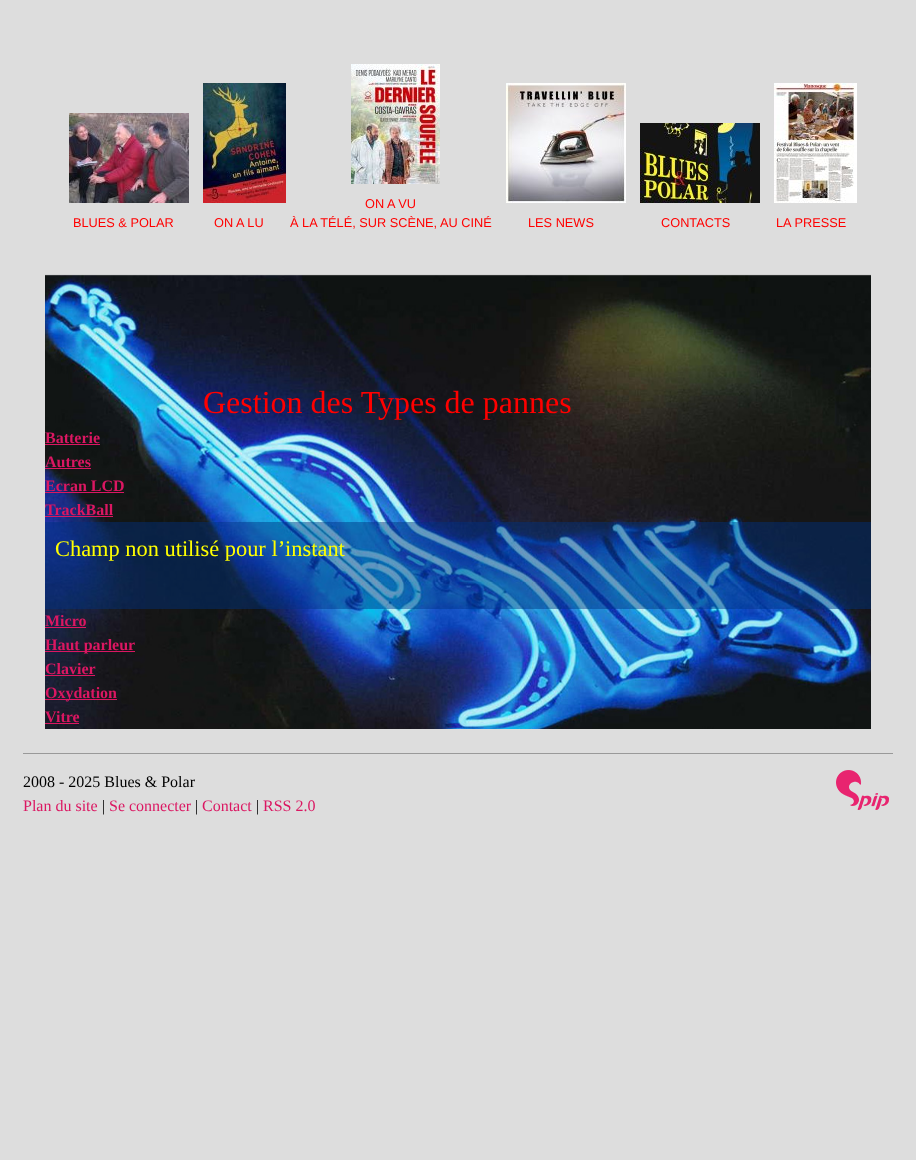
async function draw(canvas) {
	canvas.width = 916;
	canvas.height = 1160;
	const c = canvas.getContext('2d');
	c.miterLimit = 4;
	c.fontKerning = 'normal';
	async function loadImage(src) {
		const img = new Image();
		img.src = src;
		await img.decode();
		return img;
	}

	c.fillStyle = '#ddd';
	c.fillRect(0, 0, 916, 1160);
	c.drawImage(await loadImage('img1.png'), 45, 274, 826, 455);
	c.drawImage(await loadImage('img2.png'), 69, 113, 120, 90);
	c.font = '12.75px Liberation Sans';
	c.fillStyle = '#f00';
	c.fillText('BLUES & POLAR', 73, 227);
	c.drawImage(await loadImage('img3.png'), 203, 83, 83, 120);
	c.fillText('ON A LU', 214, 227);
	c.drawImage(await loadImage('img4.png'), 351, 64, 89, 120);
	c.fillText('ON A VU', 365, 208);
	c.fillText('À LA TÉLÉ, SUR SCÈNE, AU CINÉ', 290, 227);
	c.drawImage(await loadImage('img5.png'), 506, 83, 120, 120);
	c.fillText('LES NEWS', 528, 227);
	c.drawImage(await loadImage('img6.png'), 640, 123, 120, 80);
	c.fillText('CONTACTS', 661, 227);
	c.drawImage(await loadImage('img7.png'), 774, 83, 83, 120);
	c.fillText('LA PRESSE', 776, 227);
	c.font = '32px Liberation Serif';
	c.fillText('Gestion des Types de pannes', 203, 413);
	c.font = 'bold 16px Liberation Serif';
	c.fillStyle = '#db1762';
	c.fillText('Batterie', 45, 443);
	c.fillRect(45, 444, 55, 1);
	c.fillText('Autres', 45, 467);
	c.fillRect(45, 468, 46, 1);
	c.fillText('Ecran LCD', 45, 491);
	c.fillRect(45, 492, 79, 1);
	c.fillText('TrackBall', 45, 515);
	c.fillRect(45, 516, 68, 1);
	c.fillStyle = '#00328075';
	c.fillRect(45, 522, 826, 87);
	c.font = '22.4px Liberation Serif';
	c.fillStyle = '#ff0';
	c.fillText('Champ non utilisé pour l’instant', 55, 556);
	c.font = 'bold 16px Liberation Serif';
	c.fillStyle = '#db1762';
	c.fillText('Micro', 45, 626);
	c.fillRect(45, 627, 41, 1);
	c.fillRect(45, 651, 90, 1);
	c.fillText('Haut parleur', 45, 650);
	c.fillText('Clavier', 45, 674);
	c.fillRect(45, 675, 50, 1);
	c.fillRect(45, 699, 72, 1);
	c.fillText('Oxydation', 45, 698);
	c.fillText('Vitre', 45, 722);
	c.fillRect(45, 723, 34, 1);
	c.fillStyle = '#999';
	c.fillRect(23, 753, 870, 1);
	c.font = '16px Liberation Serif';
	c.fillStyle = '#000';
	c.fillText('2008 - 2025 Blues & Polar', 23, 787);
	c.fillStyle = '#db1762';
	c.fillText('Plan du site', 23, 811);
	c.fillStyle = '#000';
	c.fillText('|', 102, 811);
	c.fillStyle = '#db1762';
	c.fillText('Se connecter', 109, 811);
	c.fillStyle = '#000';
	c.fillText('|', 195, 811);
	c.fillStyle = '#db1762';
	c.fillText('Contact', 202, 811);
	c.fillStyle = '#000';
	c.fillText('|', 256, 811);
	c.fillStyle = '#db1762';
	c.fillText('RSS 2.0', 263, 811);
	c.drawImage(await loadImage('img8.png'), 836, 770, 53, 40);
}

draw(document.querySelector('canvas'));
